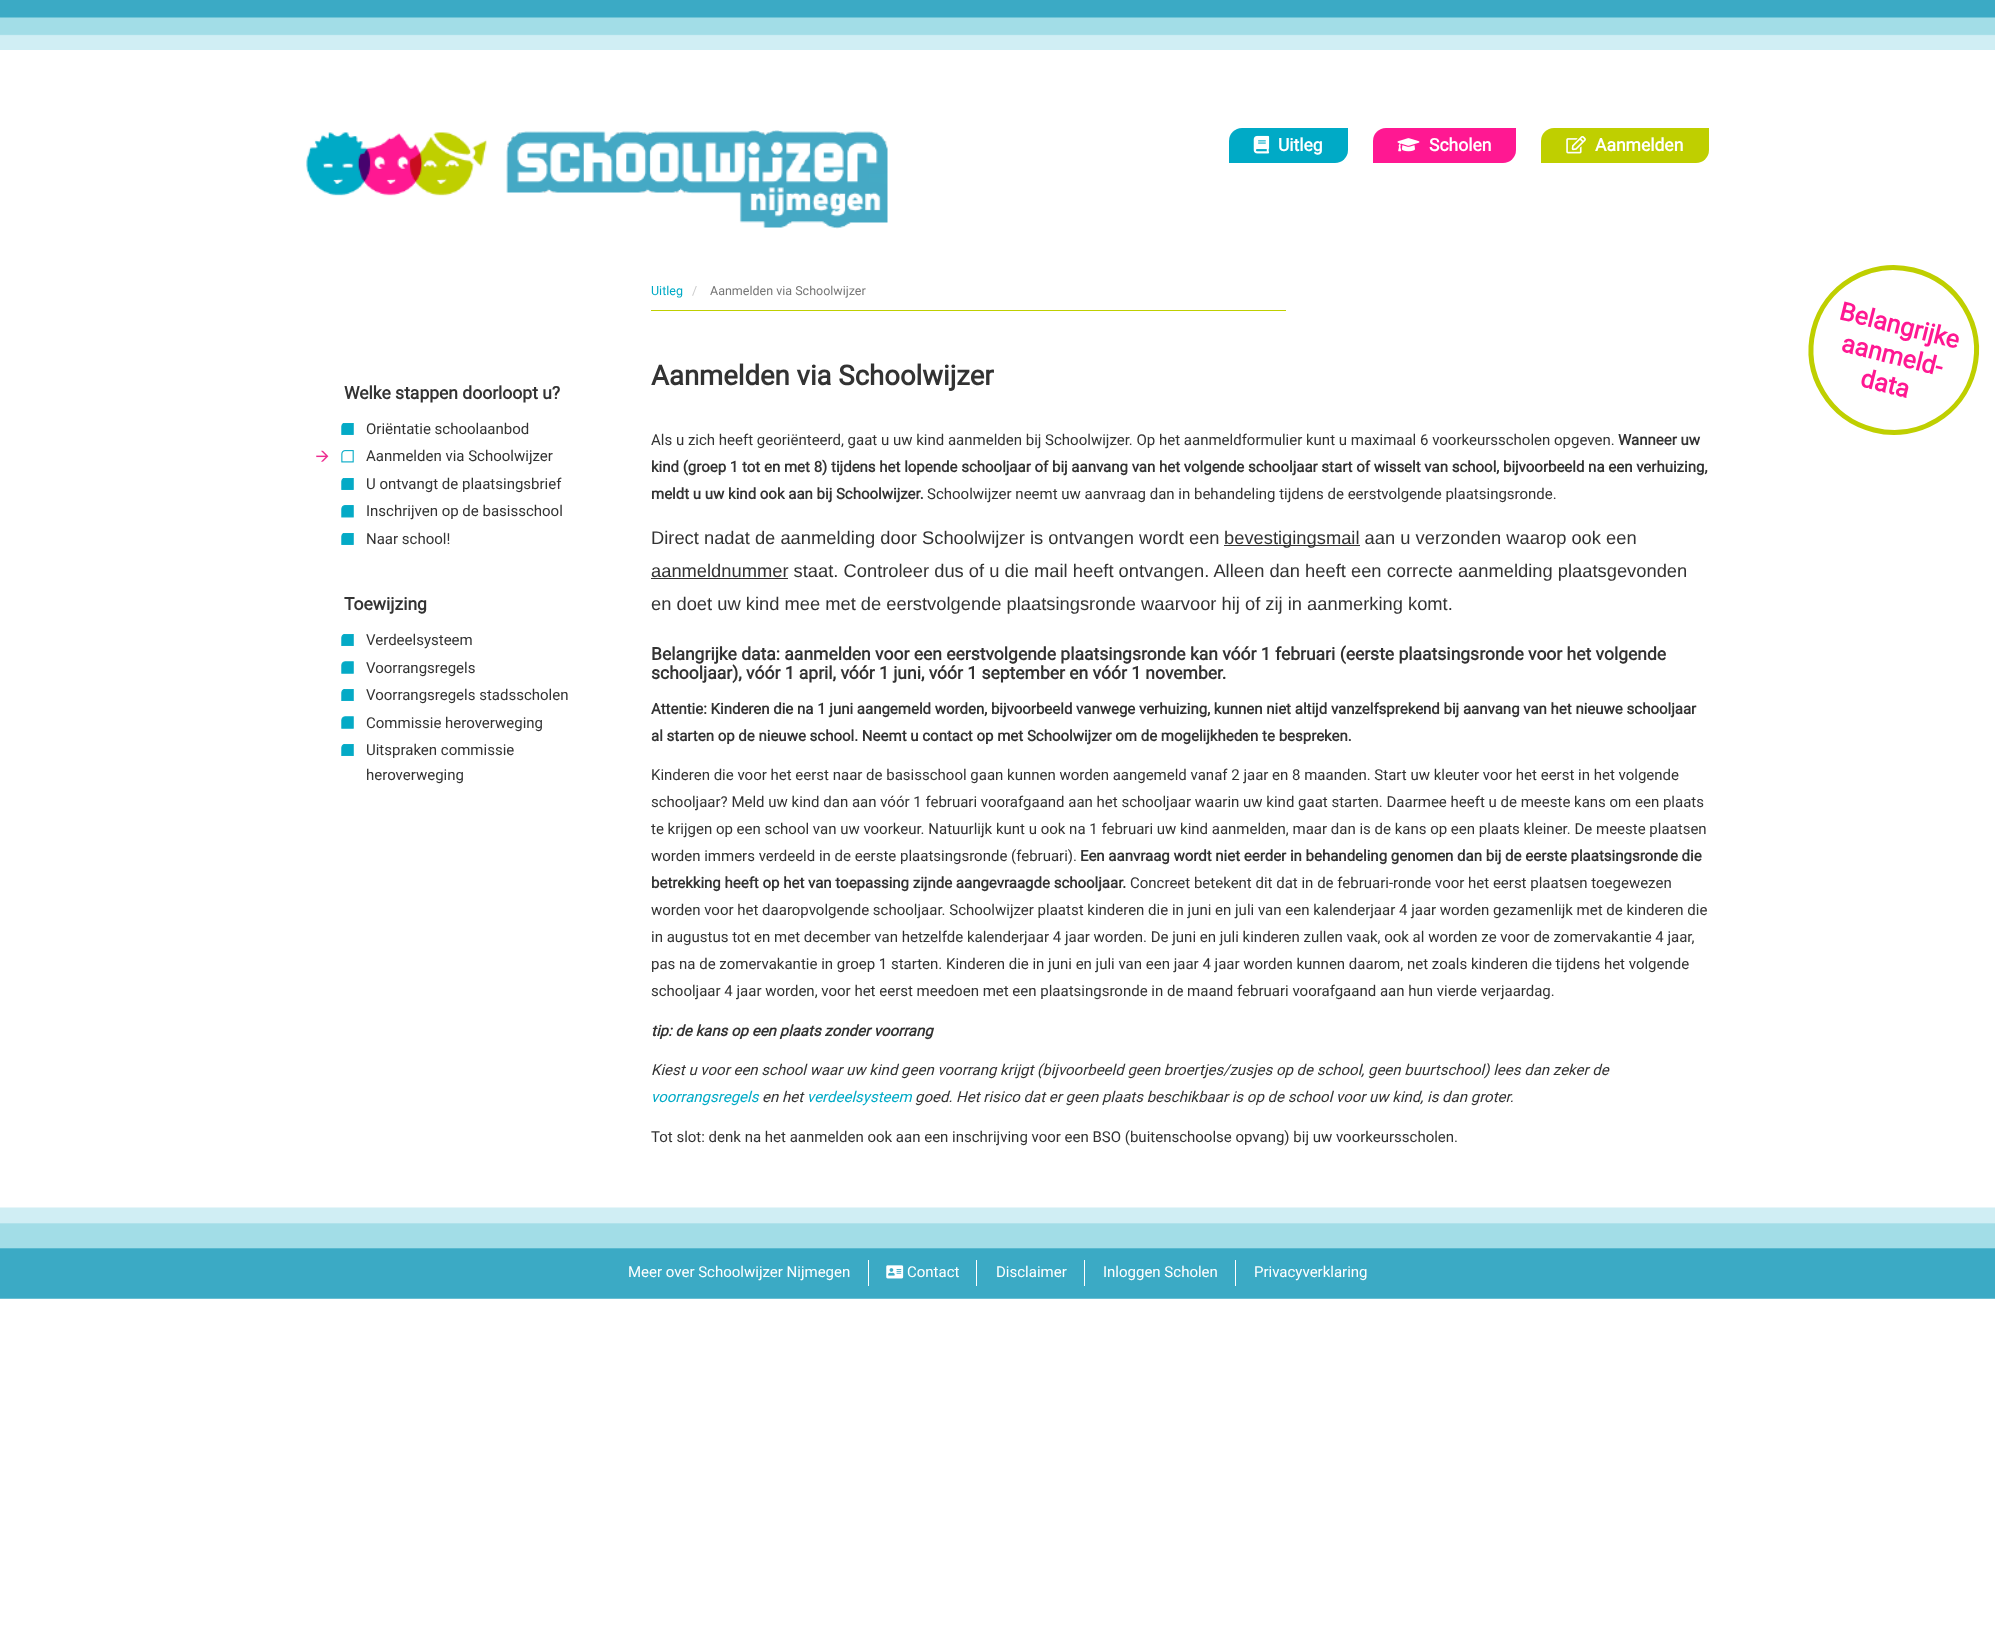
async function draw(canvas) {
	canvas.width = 1995;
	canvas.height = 1637;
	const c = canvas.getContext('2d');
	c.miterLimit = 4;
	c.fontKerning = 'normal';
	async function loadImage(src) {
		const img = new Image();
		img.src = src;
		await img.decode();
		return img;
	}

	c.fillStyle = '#fff';
	c.fillRect(0, 0, 1995, 1637);
	c.drawImage(await loadImage('img1.png'), 0, 0, 1995, 50);
	c.drawImage(await loadImage('img2.png'), 306, 130, 582, 99);
	c.fillStyle = '#00aac6';
	c.beginPath();
	c.roundRect(1229, 128, 119, 35, [13, 0, 13, 0]);
	c.fill();
	c.drawImage(await loadImage('img3.png'), 1253, 135, 17, 19);
	c.font = 'bold 17.5px Roboto';
	c.fillStyle = '#fff';
	c.fillText('Uitleg', 1278, 151);
	c.fillStyle = '#ff1892';
	c.beginPath();
	c.roundRect(1373, 128, 143, 35, [13, 0, 13, 0]);
	c.fill();
	c.drawImage(await loadImage('img4.png'), 1397, 138, 23, 14);
	c.fillStyle = '#fff';
	c.fillText('Scholen', 1429, 151);
	c.fillStyle = '#bfcf00';
	c.beginPath();
	c.roundRect(1541, 128, 168, 35, [13, 0, 13, 0]);
	c.fill();
	c.drawImage(await loadImage('img5.png'), 1566, 136, 20, 18);
	c.fillStyle = '#fff';
	c.fillText('Aanmelden', 1595, 151);
	c.fillStyle = '#333';
	c.fillText('Welke stappen doorloopt u?', 344, 399);
	c.drawImage(await loadImage('img6.png'), 341, 423, 13, 12);
	c.font = '15px Roboto';
	c.fillText('Oriëntatie schoolaanbod', 366, 434);
	c.drawImage(await loadImage('img7.png'), 316, 450, 38, 13);
	c.fillText('Aanmelden via Schoolwijzer', 366, 461);
	c.drawImage(await loadImage('img6.png'), 341, 478, 13, 12);
	c.fillText('U ontvangt de plaatsingsbrief', 366, 489);
	c.drawImage(await loadImage('img8.png'), 341, 505, 13, 13);
	c.fillText('Inschrijven op de basisschool', 366, 516);
	c.drawImage(await loadImage('img6.png'), 341, 533, 13, 12);
	c.fillText('Naar school!', 366, 544);
	c.font = 'bold 17.5px Roboto';
	c.fillText('Toewijzing', 344, 610);
	c.drawImage(await loadImage('img9.png'), 341, 634, 13, 12);
	c.font = '15px Roboto';
	c.fillText('Verdeelsysteem', 366, 645);
	c.drawImage(await loadImage('img10.png'), 341, 661, 13, 13);
	c.fillText('Voorrangsregels', 366, 673);
	c.drawImage(await loadImage('img9.png'), 341, 689, 13, 12);
	c.fillText('Voorrangsregels stadsscholen', 366, 700);
	c.drawImage(await loadImage('img10.png'), 341, 716, 13, 13);
	c.fillText('Commissie heroverweging', 366, 728);
	c.drawImage(await loadImage('img9.png'), 341, 744, 13, 12);
	c.fillText('Uitspraken commissie', 366, 755);
	c.fillText('heroverweging', 366, 780);
	c.fillStyle = '#bfcf00';
	c.fillRect(651, 310, 635, 1);
	c.font = '12.5px Roboto';
	c.fillStyle = '#00aac6';
	c.fillText('Uitleg', 651, 295);
	c.fillStyle = '#ccc';
	c.fillText('/', 692, 295);
	c.fillStyle = '#777';
	c.fillText('Aanmelden via Schoolwijzer', 710, 295);
	c.font = 'bold 27.5px Roboto';
	c.fillStyle = '#333';
	c.fillText('Aanmelden via Schoolwijzer', 651, 385);
	c.beginPath();
	c.moveTo(1913.5, 270);
	c.bezierCurveTo(1958, 281, 1985, 325.5, 1974, 370);
	c.bezierCurveTo(1963, 414, 1918, 441, 1874, 430);
	c.bezierCurveTo(1829.5, 419, 1802.5, 374.5, 1813.5, 330);
	c.bezierCurveTo(1824.5, 286, 1869.5, 259, 1913.5, 270);
	c.closePath();
	c.strokeStyle = '#bfcf00';
	c.lineWidth = 5;
	c.stroke();
	c.font = 'bold 25px Roboto';
	c.fillStyle = '#ff1892';
	c.save();
	c.translate(1838, 319);
	c.rotate(14 * Math.PI / 180);
	c.fillText('Belangrijke', 0, 0);
	c.restore();
	c.save();
	c.translate(1840, 351);
	c.rotate(14 * Math.PI / 180);
	c.fillText('aanmeld-', 0, 0);
	c.restore();
	c.save();
	c.translate(1859, 386);
	c.rotate(14 * Math.PI / 180);
	c.fillText('data', 0, 0);
	c.restore();
	c.font = '15px Roboto';
	c.fillStyle = '#333';
	c.fillText('Als u zich heeft georiënteerd, gaat u uw kind aanmelden bij Schoolwijzer. Op het aanmeldformulier kunt u maximaal 6 voorkeursscholen opgeven.', 651, 445);
	c.font = 'bold 15px Roboto';
	for (const [text, x, y] of [
		['Wanneer uw', 1618, 445],
		['kind (groep 1 tot en met 8) tijdens het lopende schooljaar of bij aanvang van het volgende schooljaar start of wisselt van school, bijvoorbeeld na een verhuizing,', 651, 472],
		['meldt u uw kind ook aan bij Schoolwijzer.', 651, 499],
	]) {
		c.fillText(text, x, y);
	}
	c.font = '15px Roboto';
	c.fillText('Schoolwijzer neemt uw aanvraag dan in behandeling tijdens de eerstvolgende plaatsingsronde.', 927, 499);
	c.font = '18.33px Liberation Sans';
	c.fillText('Direct nadat de aanmelding door Schoolwijzer is ontvangen wordt een', 651, 544);
	c.fillRect(1224, 545, 136, 1);
	c.fillText('bevestigingsmail aan u verzonden waarop ook een', 1224, 544);
	c.fillRect(651, 578, 137, 1);
	c.fillText('aanmeldnummer staat. Controleer dus of u die mail heeft ontvangen. Alleen dan heeft een correcte aanmelding plaatsgevonden', 651, 577);
	c.fillText('en doet uw kind mee met de eerstvolgende plaatsingsronde waarvoor hij of zij in aanmerking komt.', 651, 610);
	c.font = 'bold 17.5px Roboto';
	c.fillText('Belangrijke data: aanmelden voor een eerstvolgende plaatsingsronde kan vóór 1 februari (eerste plaatsingsronde voor het volgende', 651, 660);
	c.fillText('schooljaar), vóór 1 april, vóór 1 juni, vóór 1 september en vóór 1 november.', 651, 679);
	c.font = 'bold 15px Roboto';
	c.fillText('Attentie: Kinderen die na 1 juni aangemeld worden, bijvoorbeeld vanwege verhuizing, kunnen niet altijd vanzelfsprekend bij aanvang van het nieuwe schooljaar', 651, 714);
	c.fillText('al starten op de nieuwe school. Neemt u contact op met Schoolwijzer om de mogelijkheden te bespreken.', 651, 741);
	c.font = '15px Roboto';
	for (const [text, x, y] of [
		['Kinderen die voor het eerst naar de basisschool gaan kunnen worden aangemeld vanaf 2 jaar en 8 maanden. Start uw kleuter voor het eerst in het volgende', 651, 780],
		['schooljaar? Meld uw kind dan aan vóór 1 februari voorafgaand aan het schooljaar waarin uw kind gaat starten. Daarmee heeft u de meeste kans om een plaats', 651, 807],
		['te krijgen op een school van uw voorkeur. Natuurlijk kunt u ook na 1 februari uw kind aanmelden, maar dan is de kans op een plaats kleiner. De meeste plaatsen', 651, 834],
		['worden immers verdeeld in de eerste plaatsingsronde (februari).', 651, 861],
	]) {
		c.fillText(text, x, y);
	}
	c.font = 'bold 15px Roboto';
	c.fillText('Een aanvraag wordt niet eerder in behandeling genomen dan bij de eerste plaatsingsronde die', 1080, 861);
	c.fillText('betrekking heeft op het van toepassing zijnde aangevraagde schooljaar.', 651, 888);
	c.font = '15px Roboto';
	for (const [text, x, y] of [
		['Concreet betekent dit dat in de februari-ronde voor het eerst plaatsen toegewezen', 1130, 888],
		['worden voor het daaropvolgende schooljaar. Schoolwijzer plaatst kinderen die in juni en juli van een kalenderjaar 4 jaar worden gezamenlijk met de kinderen die', 651, 915],
		['in augustus tot en met december van hetzelfde kalenderjaar 4 jaar worden. De juni en juli kinderen zullen vaak, ook al worden ze voor de zomervakantie 4 jaar,', 651, 942],
		['pas na de zomervakantie in groep 1 starten. Kinderen die in juni en juli van een jaar 4 jaar worden kunnen daarom, net zoals kinderen die tijdens het volgende', 651, 969],
		['schooljaar 4 jaar worden, voor het eerst meedoen met een plaatsingsronde in de maand februari voorafgaand aan hun vierde verjaardag.', 651, 996],
	]) {
		c.fillText(text, x, y);
	}
	c.font = 'italic bold 15px Roboto';
	c.fillText('tip: de kans op een plaats zonder voorrang', 651, 1036);
	c.font = 'italic 15px Roboto';
	c.fillText('Kiest u voor een school waar uw kind geen voorrang krijgt (bijvoorbeeld geen broertjes/zusjes op de school, geen buurtschool) lees dan zeker de', 651, 1075);
	c.fillStyle = '#00aac6';
	c.fillText('voorrangsregels', 651, 1102);
	c.fillStyle = '#333';
	c.fillText('en het', 762, 1102);
	c.fillStyle = '#00aac6';
	c.fillText('verdeelsysteem', 807, 1102);
	c.fillStyle = '#333';
	c.fillText('goed. Het risico dat er geen plaats beschikbaar is op de school voor uw kind, is dan groter.', 915, 1102);
	c.font = '15px Roboto';
	c.fillText('Tot slot: denk na het aanmelden ook aan een inschrijving voor een BSO (buitenschoolse opvang) bij uw voorkeursscholen.', 651, 1142);
	c.drawImage(await loadImage('img11.png'), 0, 1207, 1995, 92);
	c.fillStyle = '#fff';
	c.fillRect(868, 1260, 1, 26);
	c.fillText('Meer over Schoolwijzer Nijmegen', 628, 1277);
	c.fillRect(976, 1260, 1, 26);
	c.drawImage(await loadImage('img12.png'), 886, 1265, 18, 14);
	c.fillText('Contact', 907, 1277);
	c.fillRect(1084, 1260, 1, 26);
	c.fillText('Disclaimer', 996, 1277);
	c.fillRect(1235, 1260, 1, 26);
	c.fillText('Inloggen Scholen', 1103, 1277);
	c.fillText('Privacyverklaring', 1254, 1277);
}

draw(document.querySelector('canvas'));
